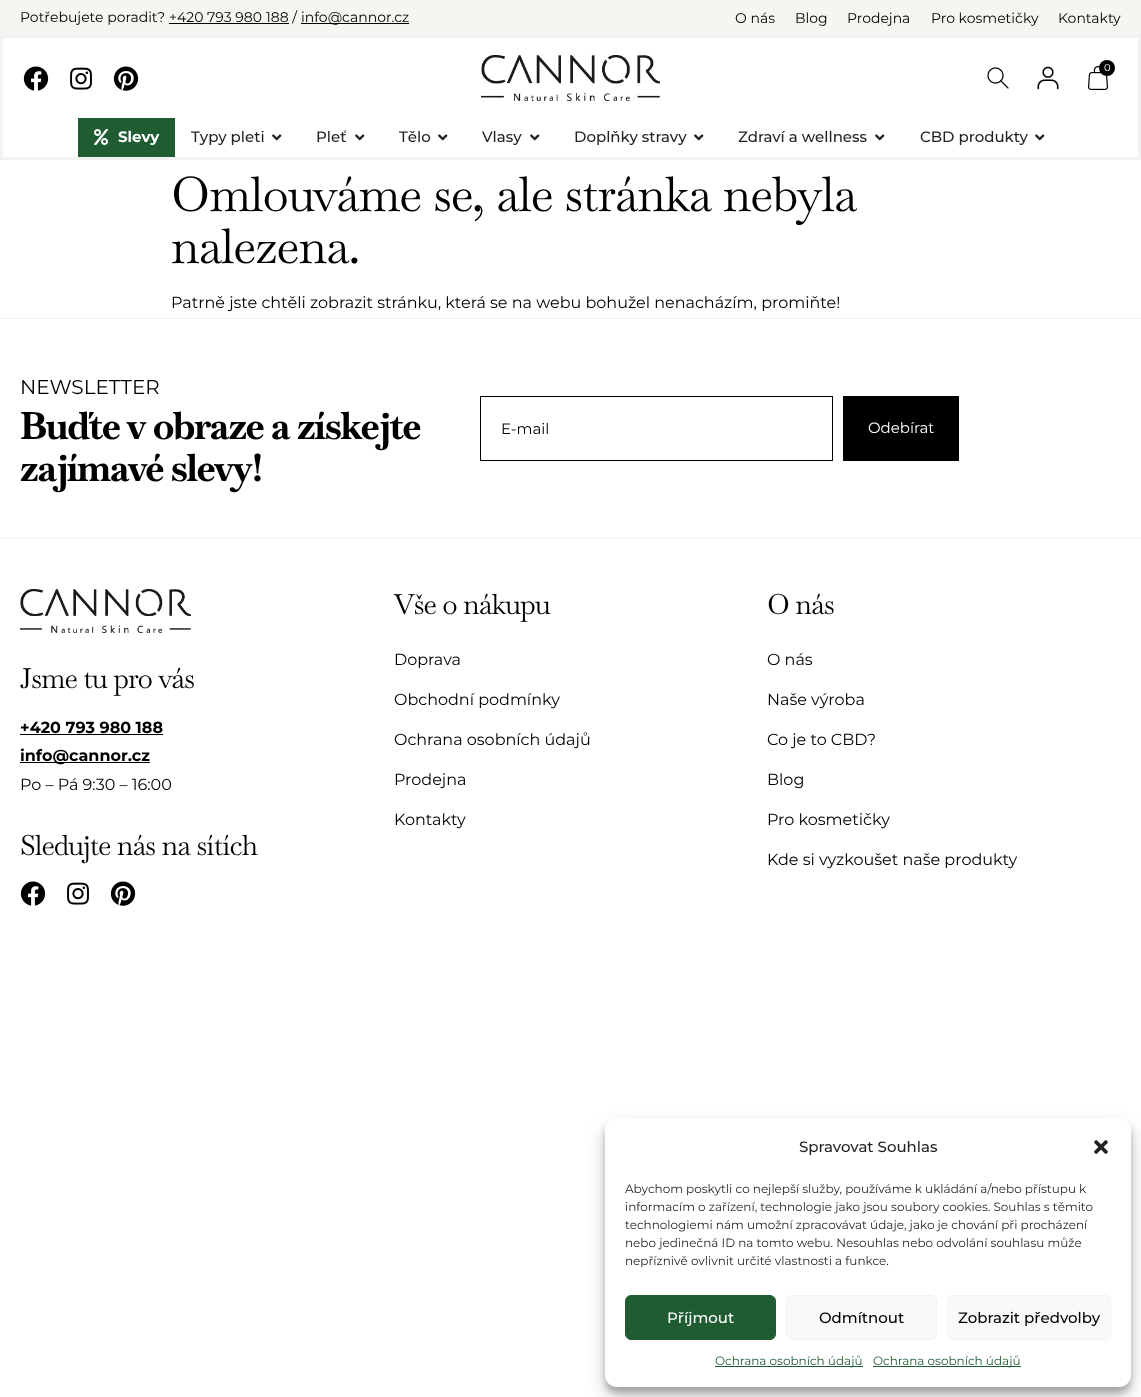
async function draw(canvas) {
	canvas.width = 1141;
	canvas.height = 1397;
	const c = canvas.getContext('2d');
	c.miterLimit = 4;
	c.fontKerning = 'normal';
	async function loadImage(src) {
		const img = new Image();
		img.src = src;
		await img.decode();
		return img;
	}

	c.fillStyle = '#fff';
	c.fillRect(0, 0, 1141, 1397);
	c.fillStyle = '#f6f5f1';
	c.fillRect(0, 0, 1141, 35);
	c.font = '14px Montserrat';
	c.fillStyle = '#000';
	c.fillText('Potřebujete poradit? +420 793 980 188 /', 20, 22);
	c.fillRect(301, 23, 108, 1);
	c.fillText('info@cannor.cz', 301, 22);
	c.fillRect(169, 23, 120, 1);
	for (const [text, x, y] of [
		['O nás', 735, 23],
		['Blog', 795, 23],
		['Prodejna', 847, 23],
		['Pro kosmetičky', 931, 23],
		['Kontakty', 1058, 23],
	]) {
		c.fillText(text, x, y);
	}
	c.beginPath();
	c.moveTo(1.5, 36.5);
	c.lineTo(1139.5, 36.5);
	c.lineTo(1139.5, 158.5);
	c.lineTo(1.5, 158.5);
	c.closePath();
	c.strokeStyle = '#f2f2f2';
	c.lineWidth = 3;
	c.stroke();
	c.drawImage(await loadImage('img1.png'), 23, 66, 26, 25);
	c.drawImage(await loadImage('img2.png'), 70, 67, 22, 23);
	c.drawImage(await loadImage('img3.png'), 113, 66, 26, 25);
	c.drawImage(await loadImage('img4.png'), 481, 55, 179, 46);
	c.drawImage(await loadImage('img5.png'), 987, 67, 22, 22);
	c.drawImage(await loadImage('img6.png'), 1037, 66, 22, 24);
	c.drawImage(await loadImage('img7.png'), 1088, 66, 20, 24);
	c.beginPath();
	c.arc(1107, 68, 8, 0, 2 * Math.PI);
	c.fill();
	c.font = '10px Montserrat';
	c.fillStyle = '#fff';
	c.fillText('0', 1104, 71);
	c.fillStyle = '#1f5c31';
	c.fillRect(78, 118, 97, 39);
	c.drawImage(await loadImage('img8.png'), 94, 129, 14, 16);
	c.font = 'bold 15px Montserrat';
	c.fillStyle = '#fff';
	c.fillText('Slevy', 118, 142);
	c.font = '500 15px Montserrat';
	c.fillStyle = '#1f2124';
	c.fillText('Typy pleti', 191, 142);
	c.drawImage(await loadImage('img9.png'), 272, 134, 10, 7);
	c.fillText('Pleť', 316, 142);
	c.drawImage(await loadImage('img9.png'), 355, 134, 10, 7);
	c.fillText('Tělo', 399, 142);
	c.drawImage(await loadImage('img9.png'), 438, 134, 10, 7);
	c.fillText('Vlasy', 482, 142);
	c.drawImage(await loadImage('img9.png'), 530, 134, 10, 7);
	c.fillText('Doplňky stravy', 574, 142);
	c.drawImage(await loadImage('img9.png'), 694, 134, 10, 7);
	c.fillText('Zdraví a wellness', 738, 142);
	c.drawImage(await loadImage('img9.png'), 875, 134, 10, 7);
	c.fillText('CBD produkty', 920, 142);
	c.drawImage(await loadImage('img9.png'), 1035, 134, 10, 7);
	c.letterSpacing = '-1px';
	c.font = '48px Baskervville';
	c.fillStyle = '#000';
	c.fillText('Omlouváme se, ale stránka nebyla', 171, 211);
	c.fillText('nalezena.', 171, 263);
	c.letterSpacing = '0px';
	c.font = '16px Montserrat';
	c.fillText('Patrně jste chtěli zobrazit stránku, která se na webu bohužel nenacházím, promiňte!', 171, 308);
	c.fillStyle = '#f1f1f1';
	c.fillRect(0, 318, 1141, 1);
	c.font = '20px Montserrat';
	c.fillStyle = '#000';
	c.fillText('NEWSLETTER', 20, 394);
	c.letterSpacing = '-1px';
	c.font = 'bold 38px Baskervville';
	c.fillText('Buďte v obraze a získejte', 20, 439);
	c.fillText('zajímavé slevy!', 20, 481);
	c.strokeStyle = '#000';
	c.lineWidth = 1;
	c.strokeRect(480.5, 396.5, 352, 64);
	c.letterSpacing = '0px';
	c.font = '15px Montserrat';
	c.fillText('E-mail', 501, 434);
	c.fillRect(843, 396, 116, 65);
	c.fillStyle = '#fff';
	c.fillText('Odebírat', 868, 433);
	c.fillStyle = '#f1f1f1';
	c.fillRect(0, 538, 1141, 1);
	c.drawImage(await loadImage('img10.png'), 20, 589, 171, 44);
	c.letterSpacing = '-1px';
	c.font = '28px Baskervville';
	c.fillStyle = '#000';
	c.fillText('Jsme tu pro vás', 20, 688);
	c.letterSpacing = '0px';
	c.font = 'bold 16px Montserrat';
	c.fillText('+420 793 980 188', 20, 733);
	c.fillRect(20, 734, 143, 1);
	c.fillRect(20, 762, 130, 1);
	c.fillText('info@cannor.cz', 20, 761);
	c.font = '16px Montserrat';
	c.fillText('Po – Pá 9:30 – 16:00', 20, 790);
	c.letterSpacing = '-1px';
	c.font = '28px Baskervville';
	c.fillText('Sledujte nás na sítích', 20, 855);
	c.drawImage(await loadImage('img1.png'), 20, 881, 26, 25);
	c.drawImage(await loadImage('img2.png'), 67, 882, 22, 23);
	c.drawImage(await loadImage('img3.png'), 110, 881, 26, 25);
	c.fillText('Vše o nákupu', 394, 614);
	c.letterSpacing = '0px';
	c.font = '16px Montserrat';
	for (const [text, x, y] of [
		['Doprava', 394, 665],
		['Obchodní podmínky', 394, 705],
		['Ochrana osobních údajů', 394, 745],
		['Prodejna', 394, 785],
		['Kontakty', 394, 825],
	]) {
		c.fillText(text, x, y);
	}
	c.letterSpacing = '-1px';
	c.font = '28px Baskervville';
	c.fillText('O nás', 767, 614);
	c.letterSpacing = '0px';
	c.font = '16px Montserrat';
	for (const [text, x, y] of [
		['O nás', 767, 665],
		['Naše výroba', 767, 705],
		['Co je to CBD?', 767, 745],
		['Blog', 767, 785],
		['Pro kosmetičky', 767, 825],
		['Kde si vyzkoušet naše produkty', 767, 865],
	]) {
		c.fillText(text, x, y);
	}
	c.fillStyle = '#0000003b';
	c.filter = 'blur(3px)';
	c.beginPath();
	c.roundRect(605, 1124, 526, 269, 12);
	c.fill();
	c.filter = 'none';
	c.fillStyle = '#00000030';
	c.filter = 'blur(10px)';
	c.beginPath();
	c.roundRect(605, 1128, 526, 269, 12);
	c.fill();
	c.filter = 'none';
	c.fillStyle = '#fff';
	c.beginPath();
	c.roundRect(605, 1118, 526, 269, 12);
	c.fill();
	c.font = '500 15px Montserrat';
	c.fillStyle = '#1f2124';
	c.fillText('Spravovat Souhlas', 799, 1152);
	c.drawImage(await loadImage('img11.png'), 1094, 1140, 14, 14);
	c.font = '12px Montserrat';
	for (const [text, x, y] of [
		['Abychom poskytli co nejlepší služby, používáme k ukládání a/nebo přístupu k', 625, 1193],
		['informacím o zařízení, technologie jako jsou soubory cookies. Souhlas s těmito', 625, 1211],
		['technologiemi nám umožní zpracovávat údaje, jako je chování při procházení', 625, 1229],
		['nebo jedinečná ID na tomto webu. Nesouhlas nebo odvolání souhlasu může', 625, 1247],
		['nepříznivě ovlivnit určité vlastnosti a funkce.', 625, 1265],
	]) {
		c.fillText(text, x, y);
	}
	c.fillStyle = '#1f5c31';
	c.beginPath();
	c.roundRect(625.5, 1295.5, 150, 44, 5.5);
	c.fill();
	c.strokeStyle = '#1f5c31';
	c.stroke();
	c.font = '500 15px Montserrat';
	c.fillStyle = '#fff';
	c.fillText('Příjmout', 667, 1323);
	c.fillStyle = '#f9f9f9';
	c.beginPath();
	c.roundRect(786.5, 1295.5, 150, 44, 5.5);
	c.fill();
	c.strokeStyle = '#f2f2f2';
	c.stroke();
	c.fillStyle = '#000';
	c.fillText('Odmítnout', 819, 1323);
	c.fillStyle = '#f9f9f9';
	c.beginPath();
	c.roundRect(947.5, 1295.5, 163, 44, 5.5);
	c.fill();
	c.stroke();
	c.fillStyle = '#000';
	c.fillText('Zobrazit předvolby', 958, 1323);
	c.fillStyle = '#1f5c31';
	c.fillRect(715, 1366, 148, 1);
	c.font = '12px Montserrat';
	c.fillText('Ochrana osobních údajů', 715, 1365);
	c.fillRect(873, 1366, 148, 1);
	c.fillText('Ochrana osobních údajů', 873, 1365);
}

draw(document.querySelector('canvas'));
